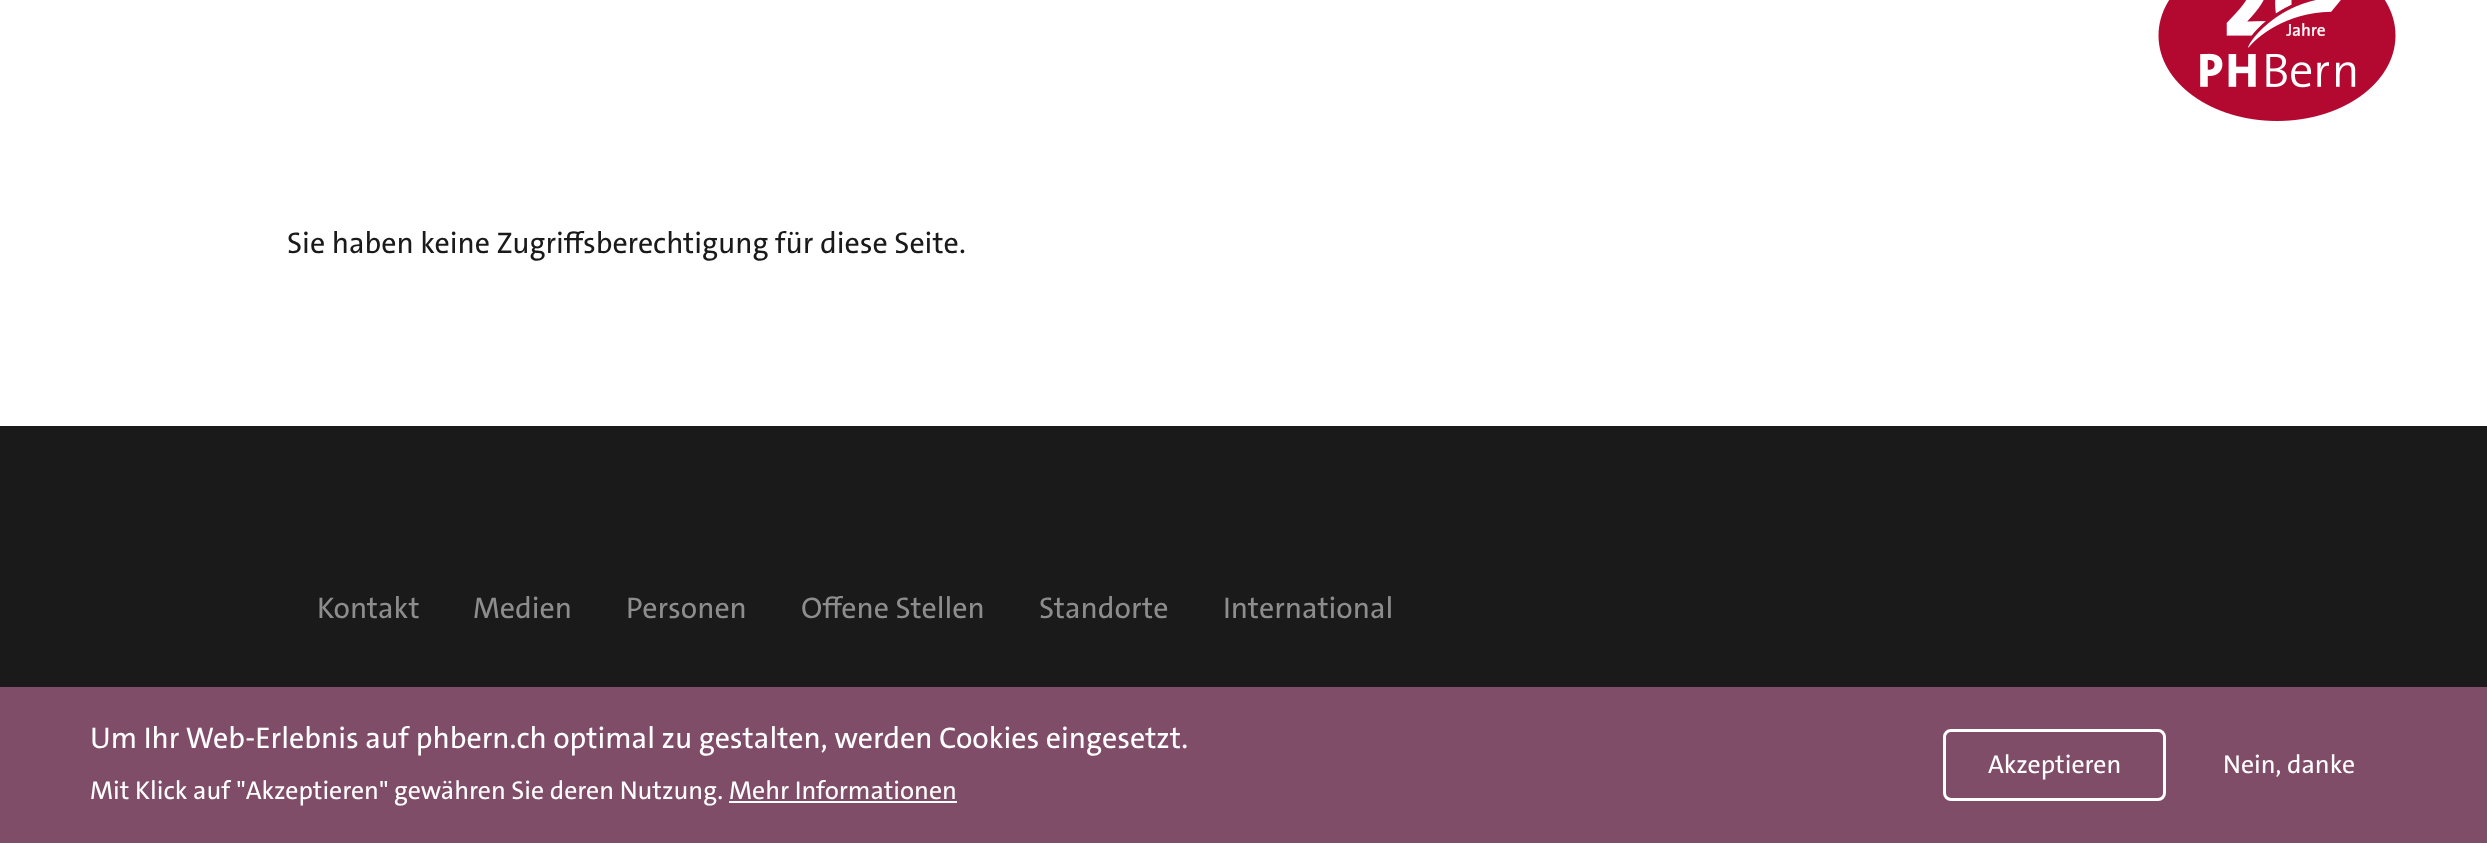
async function draw(canvas) {
	canvas.width = 2487;
	canvas.height = 843;
	const c = canvas.getContext('2d');
	c.miterLimit = 4;
	c.fontKerning = 'normal';
	async function loadImage(src) {
		const img = new Image();
		img.src = src;
		await img.decode();
		return img;
	}

	c.fillStyle = '#fff';
	c.fillRect(0, 0, 2487, 843);
	c.drawImage(await loadImage('img1.png'), 2158, 0, 238, 121);
	c.font = '500 30px "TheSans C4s"';
	c.fillStyle = '#1a1a1a';
	c.fillText('Sie haben keine Zugriffsberechtigung für diese Seite.', 287, 253);
	c.fillRect(0, 426, 2487, 261);
	c.fillStyle = '#8d8d8d';
	for (const [text, x, y] of [
		['Kontakt', 317, 618],
		['Medien', 473, 618],
		['Personen', 626, 618],
		['Offene Stellen', 801, 618],
		['Standorte', 1039, 618],
		['International', 1223, 618],
	]) {
		c.fillText(text, x, y);
	}
	c.fillStyle = '#804d69';
	c.fillRect(0, 687, 2487, 156);
	c.fillStyle = '#fff';
	c.fillText('Um Ihr Web-Erlebnis auf phbern.ch optimal zu gestalten, werden Cookies eingesetzt.', 90, 748);
	c.font = '500 25.8px "TheSans C4s"';
	c.fillText('Mit Klick auf "Akzeptieren" gewähren Sie deren Nutzung.', 90, 799);
	c.fillText('Mehr Informationen', 729, 799);
	c.fillRect(729, 801, 228, 2);
	c.beginPath();
	c.roundRect(1944.5, 730.5, 220, 69, 6.5);
	c.strokeStyle = '#fff';
	c.lineWidth = 3;
	c.stroke();
	c.fillText('Akzeptieren', 1988, 773);
	c.fillText('Nein, danke', 2223, 773);
}

draw(document.querySelector('canvas'));
